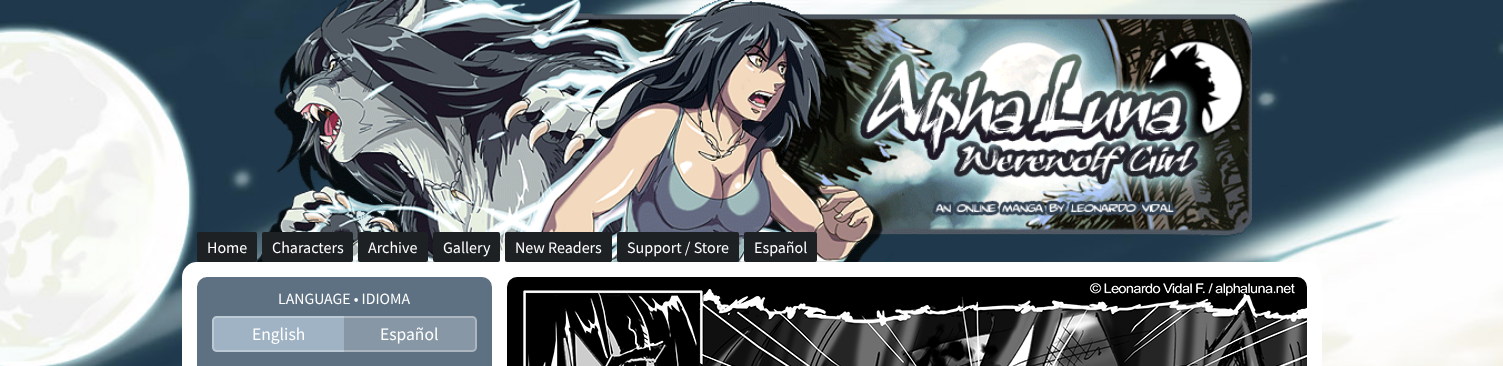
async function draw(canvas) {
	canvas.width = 1503;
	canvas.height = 366;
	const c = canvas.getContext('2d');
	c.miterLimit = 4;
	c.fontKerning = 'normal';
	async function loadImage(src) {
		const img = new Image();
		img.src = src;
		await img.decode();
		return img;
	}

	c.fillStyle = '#fff';
	c.fillRect(0, 0, 1503, 366);
	c.drawImage(await loadImage('img1.png'), 0, 0, 1503, 366);
	c.drawImage(await loadImage('img2.png'), 255, 0, 997, 262);
	c.fillStyle = '#1d2124';
	c.beginPath();
	c.roundRect(197, 232, 60, 30, 2);
	c.fill();
	c.font = '16px Source Sans Pro';
	c.fillStyle = '#fff';
	c.fillText('Home', 207, 253);
	c.fillStyle = '#1d2124';
	c.beginPath();
	c.roundRect(262, 232, 91, 30, 2);
	c.fill();
	c.fillStyle = '#fff';
	c.fillText('Characters', 272, 253);
	c.fillStyle = '#1d2124';
	c.beginPath();
	c.roundRect(358, 232, 70, 30, 2);
	c.fill();
	c.fillStyle = '#fff';
	c.fillText('Archive', 368, 253);
	c.fillStyle = '#1d2124';
	c.beginPath();
	c.roundRect(433, 232, 67, 30, 2);
	c.fill();
	c.fillStyle = '#fff';
	c.fillText('Gallery', 443, 253);
	c.fillStyle = '#1d2124';
	c.beginPath();
	c.roundRect(505, 232, 107, 30, 2);
	c.fill();
	c.fillStyle = '#fff';
	c.fillText('New Readers', 515, 253);
	c.fillStyle = '#1d2124';
	c.beginPath();
	c.roundRect(617, 232, 122, 30, 2);
	c.fill();
	c.fillStyle = '#fff';
	c.fillText('Support / Store', 627, 253);
	c.fillStyle = '#1d2124';
	c.beginPath();
	c.roundRect(744, 232, 73, 30, 2);
	c.fill();
	c.fillStyle = '#fff';
	c.fillText('Español', 754, 253);
	c.beginPath();
	c.roundRect(182, 262, 1140, 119, 15);
	c.fill();
	c.fillStyle = '#5e7182';
	c.beginPath();
	c.roundRect(197, 277, 295, 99, 10);
	c.fill();
	c.font = '15.75px Source Sans Pro';
	c.fillStyle = '#fff';
	c.fillText('LANGUAGE • IDIOMA', 278, 304);
	c.fillStyle = '#a0b3c4';
	c.beginPath();
	c.roundRect(212, 316, 132, 36, [5, 0, 0, 5]);
	c.fill();
	c.fillStyle = '#ffffff4d';
	c.beginPath();
	c.moveTo(217, 316);
	c.lineTo(344, 316);
	c.lineTo(344, 352);
	c.lineTo(217, 352);
	c.bezierCurveTo(214, 352, 212, 350, 212, 347);
	c.lineTo(212, 321);
	c.bezierCurveTo(212, 318, 214, 316, 217, 316);
	c.closePath();
	c.moveTo(217, 318);
	c.lineTo(344, 318);
	c.lineTo(344, 350);
	c.lineTo(217, 350);
	c.bezierCurveTo(215, 350, 214, 349, 214, 347);
	c.lineTo(214, 321);
	c.bezierCurveTo(214, 319, 215, 318, 217, 318);
	c.closePath();
	c.fill('evenodd');
	c.font = '17.5px Source Sans Pro';
	c.fillStyle = '#fff';
	c.fillText('English', 252, 340);
	c.fillStyle = '#8797a5';
	c.beginPath();
	c.roundRect(344, 316, 133, 36, [0, 5, 5, 0]);
	c.fill();
	c.fillStyle = '#ffffff4d';
	c.beginPath();
	c.moveTo(344, 316);
	c.lineTo(472, 316);
	c.bezierCurveTo(475, 316, 477, 318, 477, 321);
	c.lineTo(477, 347);
	c.bezierCurveTo(477, 350, 475, 352, 472, 352);
	c.lineTo(344, 352);
	c.closePath();
	c.moveTo(344, 318);
	c.lineTo(472, 318);
	c.bezierCurveTo(474, 318, 475, 319, 475, 321);
	c.lineTo(475, 347);
	c.bezierCurveTo(475, 349, 474, 350, 472, 350);
	c.lineTo(344, 350);
	c.closePath();
	c.fill('evenodd');
	c.fillStyle = '#fff';
	c.fillText('Español', 380, 340);
	c.drawImage(await loadImage('img3.png'), 507, 277, 800, 89);
}

draw(document.querySelector('canvas'));
